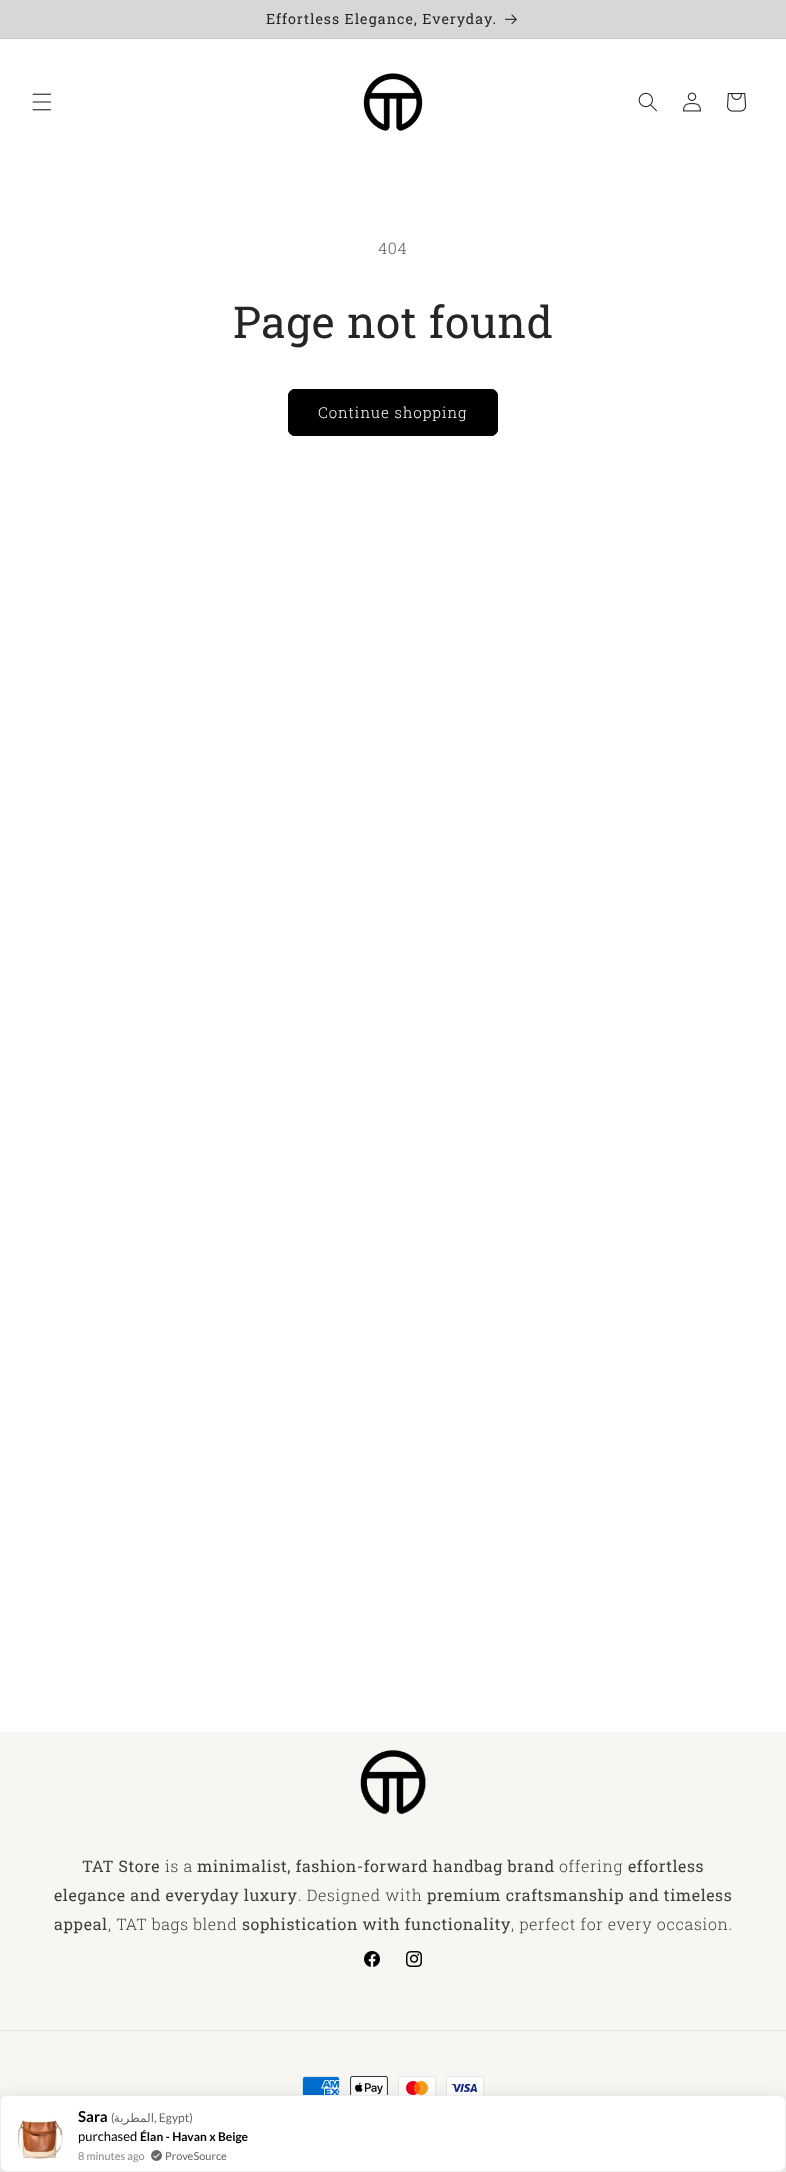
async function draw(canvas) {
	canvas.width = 786;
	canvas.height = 2172;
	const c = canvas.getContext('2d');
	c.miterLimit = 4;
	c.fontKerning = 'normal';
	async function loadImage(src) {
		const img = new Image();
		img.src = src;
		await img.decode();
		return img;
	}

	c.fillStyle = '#fff';
	c.fillRect(0, 0, 786, 2172);
	c.fillStyle = '#d7d7d7';
	c.fillRect(0, 0, 786, 38);
	c.fillStyle = '#c9c9c9';
	c.fillRect(0, 38, 786, 1);
	c.letterSpacing = '1px';
	c.font = '14.25px Roboto Slab';
	c.fillStyle = '#252525';
	c.fillText('Effortless Elegance, Everyday.', 266, 24);
	c.drawImage(await loadImage('img1.png'), 505, 14, 12, 11);
	c.drawImage(await loadImage('img2.png'), 32, 93, 20, 18);
	c.drawImage(await loadImage('img3.png'), 363, 73, 60, 58);
	c.drawImage(await loadImage('img4.png'), 638, 92, 19, 20);
	c.drawImage(await loadImage('img5.png'), 683, 92, 18, 20);
	c.drawImage(await loadImage('img6.png'), 727, 93, 20, 19);
	c.letterSpacing = '0.6px';
	c.font = '300 16px Roboto Slab';
	c.fillStyle = '#5c5c5c';
	c.fillText('404', 378, 254);
	c.letterSpacing = '0.7px';
	c.font = '44px Roboto Slab';
	c.fillStyle = '#252525';
	c.fillText('Page not found', 233, 338);
	c.fillStyle = '#000';
	c.beginPath();
	c.roundRect(288, 389, 210, 47, 7);
	c.fill();
	c.beginPath();
	c.roundRect(288.5, 389.5, 209, 46, 6.5);
	c.strokeStyle = '#000';
	c.stroke();
	c.letterSpacing = '1px';
	c.font = '300 15px Roboto Slab';
	c.fillStyle = '#fff';
	c.fillText('Continue shopping', 318, 418);
	c.fillStyle = '#f7f6f3';
	c.fillRect(0, 1732, 786, 440);
	c.drawImage(await loadImage('img7.png'), 360, 1750, 66, 65);
	c.letterSpacing = '0.6px';
	c.font = '16px Roboto Slab';
	c.fillStyle = '#3e3e3d';
	c.fillText('TAT Store', 82, 1872);
	c.font = '300 16px Roboto Slab';
	c.fillText('is a', 165, 1872);
	c.font = '16px Roboto Slab';
	c.fillText('minimalist, fashion-forward handbag brand', 197, 1872);
	c.font = '300 16px Roboto Slab';
	c.fillText('offering', 559, 1872);
	c.font = '16px Roboto Slab';
	c.fillText('effortless', 628, 1872);
	c.fillText('elegance and everyday luxury', 54, 1901);
	c.font = '300 16px Roboto Slab';
	c.fillText('. Designed with', 298, 1901);
	c.font = '16px Roboto Slab';
	c.fillText('premium craftsmanship and timeless', 427, 1901);
	c.fillText('appeal', 54, 1930);
	c.font = '300 16px Roboto Slab';
	c.fillText(', TAT bags blend', 108, 1930);
	c.font = '16px Roboto Slab';
	c.fillText('sophistication with functionality', 242, 1930);
	c.font = '300 16px Roboto Slab';
	c.fillText(', perfect for every occasion.', 511, 1930);
	c.drawImage(await loadImage('img8.png'), 364, 1951, 16, 16);
	c.drawImage(await loadImage('img9.png'), 406, 1951, 16, 16);
	c.fillStyle = '#e3e2e0';
	c.fillRect(0, 2030, 786, 1);
	c.drawImage(await loadImage('img10.png'), 302, 2076, 38, 19);
	c.drawImage(await loadImage('img11.png'), 350, 2076, 38, 19);
	c.drawImage(await loadImage('img12.png'), 398, 2076, 38, 19);
	c.drawImage(await loadImage('img13.png'), 446, 2076, 38, 19);
	c.fillStyle = '#00000026';
	c.filter = 'blur(10px)';
	c.beginPath();
	c.roundRect(0, 2100, 786, 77, 7);
	c.fill();
	c.filter = 'none';
	c.fillStyle = '#fff';
	c.beginPath();
	c.roundRect(0.5, 2095.5, 785, 76, 6.5);
	c.fill();
	c.strokeStyle = '#ececec';
	c.stroke();
	c.drawImage(await loadImage('img14.png'), 17, 2119, 46, 41);
	c.letterSpacing = '0px';
	c.font = 'bold 15px Lato';
	c.fillStyle = '#000';
	c.fillText('Sara', 78, 2122);
	c.font = '12px Lato';
	c.fillStyle = '#666';
	c.fillText('(', 111, 2122);
	c.direction = 'rtl';
	c.font = '12px DejaVu Sans';
	c.fillText('المطرية', 154, 2122);
	c.direction = 'ltr';
	c.font = '12px Lato';
	c.fillText(', Egypt)', 154, 2122);
	c.font = '13px Lato';
	c.fillStyle = '#000';
	c.fillText('purchased', 78, 2141);
	c.font = 'bold 12px Lato';
	c.fillText('Élan - Havan x Beige', 140, 2141);
	c.font = '11px Lato';
	c.fillStyle = '#888';
	c.fillText('8 minutes ago', 78, 2160);
	c.drawImage(await loadImage('img15.png'), 151, 2150, 11, 11);
	c.fillStyle = '#666';
	c.fillText('ProveSource', 165, 2160);
}

draw(document.querySelector('canvas'));
